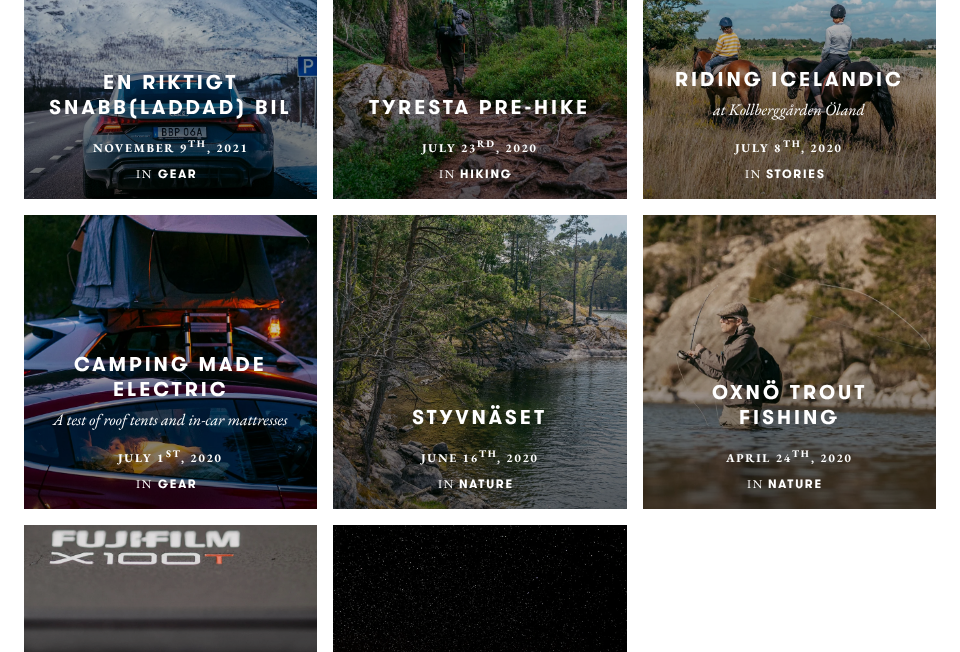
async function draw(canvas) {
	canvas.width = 960;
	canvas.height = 652;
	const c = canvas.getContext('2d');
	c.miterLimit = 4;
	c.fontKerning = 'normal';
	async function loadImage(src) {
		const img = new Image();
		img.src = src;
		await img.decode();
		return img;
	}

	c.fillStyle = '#fff';
	c.fillRect(0, 0, 960, 652);
	c.drawImage(await loadImage('img1.png'), 24, 0, 293, 199);
	c.letterSpacing = '3px';
	c.font = 'bold 20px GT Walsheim';
	c.fillText('EN RIKTIGT', 103, 89);
	c.fillText('SNABB(LADDAD) BIL', 49, 114);
	c.letterSpacing = '1.75px';
	c.font = 'bold 12px EB Garamond';
	c.fillText('NOVEMBER 9', 93, 152);
	c.font = 'bold 10px EB Garamond';
	c.fillText('TH', 188, 147);
	c.font = 'bold 12px EB Garamond';
	c.fillText(', 2021', 207, 152);
	c.font = '12px EB Garamond';
	c.fillText('IN', 136, 178);
	c.font = 'bold 12px GT Walsheim';
	c.fillText('GEAR', 158, 178);
	c.drawImage(await loadImage('img2.png'), 333, 0, 294, 199);
	c.letterSpacing = '3px';
	c.font = 'bold 20px GT Walsheim';
	c.fillText('TYRESTA PRE-HIKE', 369, 114);
	c.letterSpacing = '1.75px';
	c.font = 'bold 12px EB Garamond';
	c.fillText('JULY 23', 422, 152);
	c.font = 'bold 10px EB Garamond';
	c.fillText('RD', 477, 147);
	c.font = 'bold 12px EB Garamond';
	c.fillText(', 2020', 496, 152);
	c.font = '12px EB Garamond';
	c.fillText('IN', 439, 178);
	c.font = 'bold 12px GT Walsheim';
	c.fillText('HIKING', 460, 178);
	c.drawImage(await loadImage('img3.png'), 643, 0, 293, 199);
	c.letterSpacing = '3px';
	c.font = 'bold 20px GT Walsheim';
	c.fillText('RIDING ICELANDIC', 675, 86);
	c.letterSpacing = '0px';
	c.font = 'italic 16px EB Garamond';
	c.fillText('at Kollberggården Öland', 713, 115);
	c.letterSpacing = '1.75px';
	c.font = 'bold 12px EB Garamond';
	c.fillText('JULY 8', 735, 152);
	c.font = 'bold 10px EB Garamond';
	c.fillText('TH', 783, 147);
	c.font = 'bold 12px EB Garamond';
	c.fillText(', 2020', 801, 152);
	c.font = '12px EB Garamond';
	c.fillText('IN', 745, 178);
	c.font = 'bold 12px GT Walsheim';
	c.fillText('STORIES', 766, 178);
	c.drawImage(await loadImage('img4.png'), 24, 215, 293, 294);
	c.letterSpacing = '3px';
	c.font = 'bold 20px GT Walsheim';
	c.fillText('CAMPING MADE', 74, 371);
	c.fillText('ELECTRIC', 113, 396);
	c.letterSpacing = '0px';
	c.font = 'italic 16px EB Garamond';
	c.fillText('A test of roof tents and in-car mattresses', 53, 425);
	c.letterSpacing = '1.75px';
	c.font = 'bold 12px EB Garamond';
	c.fillText('JULY 1', 118, 462);
	c.font = 'bold 10px EB Garamond';
	c.fillText('ST', 166, 457);
	c.font = 'bold 12px EB Garamond';
	c.fillText(', 2020', 181, 462);
	c.font = '12px EB Garamond';
	c.fillText('IN', 136, 488);
	c.font = 'bold 12px GT Walsheim';
	c.fillText('GEAR', 158, 488);
	c.drawImage(await loadImage('img5.png'), 333, 215, 294, 294);
	c.letterSpacing = '3px';
	c.font = 'bold 20px GT Walsheim';
	c.fillText('STYVNÄSET', 412, 424);
	c.letterSpacing = '1.75px';
	c.font = 'bold 12px EB Garamond';
	c.fillText('JUNE 16', 421, 462);
	c.font = 'bold 10px EB Garamond';
	c.fillText('TH', 479, 457);
	c.font = 'bold 12px EB Garamond';
	c.fillText(', 2020', 497, 462);
	c.font = '12px EB Garamond';
	c.fillText('IN', 438, 488);
	c.font = 'bold 12px GT Walsheim';
	c.fillText('NATURE', 459, 488);
	c.drawImage(await loadImage('img6.png'), 643, 215, 293, 294);
	c.letterSpacing = '3px';
	c.font = 'bold 20px GT Walsheim';
	c.fillText('OXNÖ TROUT', 712, 399);
	c.fillText('FISHING', 739, 424);
	c.letterSpacing = '1.75px';
	c.font = 'bold 12px EB Garamond';
	c.fillText('APRIL 24', 726, 462);
	c.font = 'bold 10px EB Garamond';
	c.fillText('TH', 792, 457);
	c.font = 'bold 12px EB Garamond';
	c.fillText(', 2020', 811, 462);
	c.font = '12px EB Garamond';
	c.fillText('IN', 747, 488);
	c.font = 'bold 12px GT Walsheim';
	c.fillText('NATURE', 768, 488);
	c.drawImage(await loadImage('img7.png'), 24, 525, 293, 127);
	c.drawImage(await loadImage('img8.png'), 333, 525, 294, 127);
}

draw(document.querySelector('canvas'));
